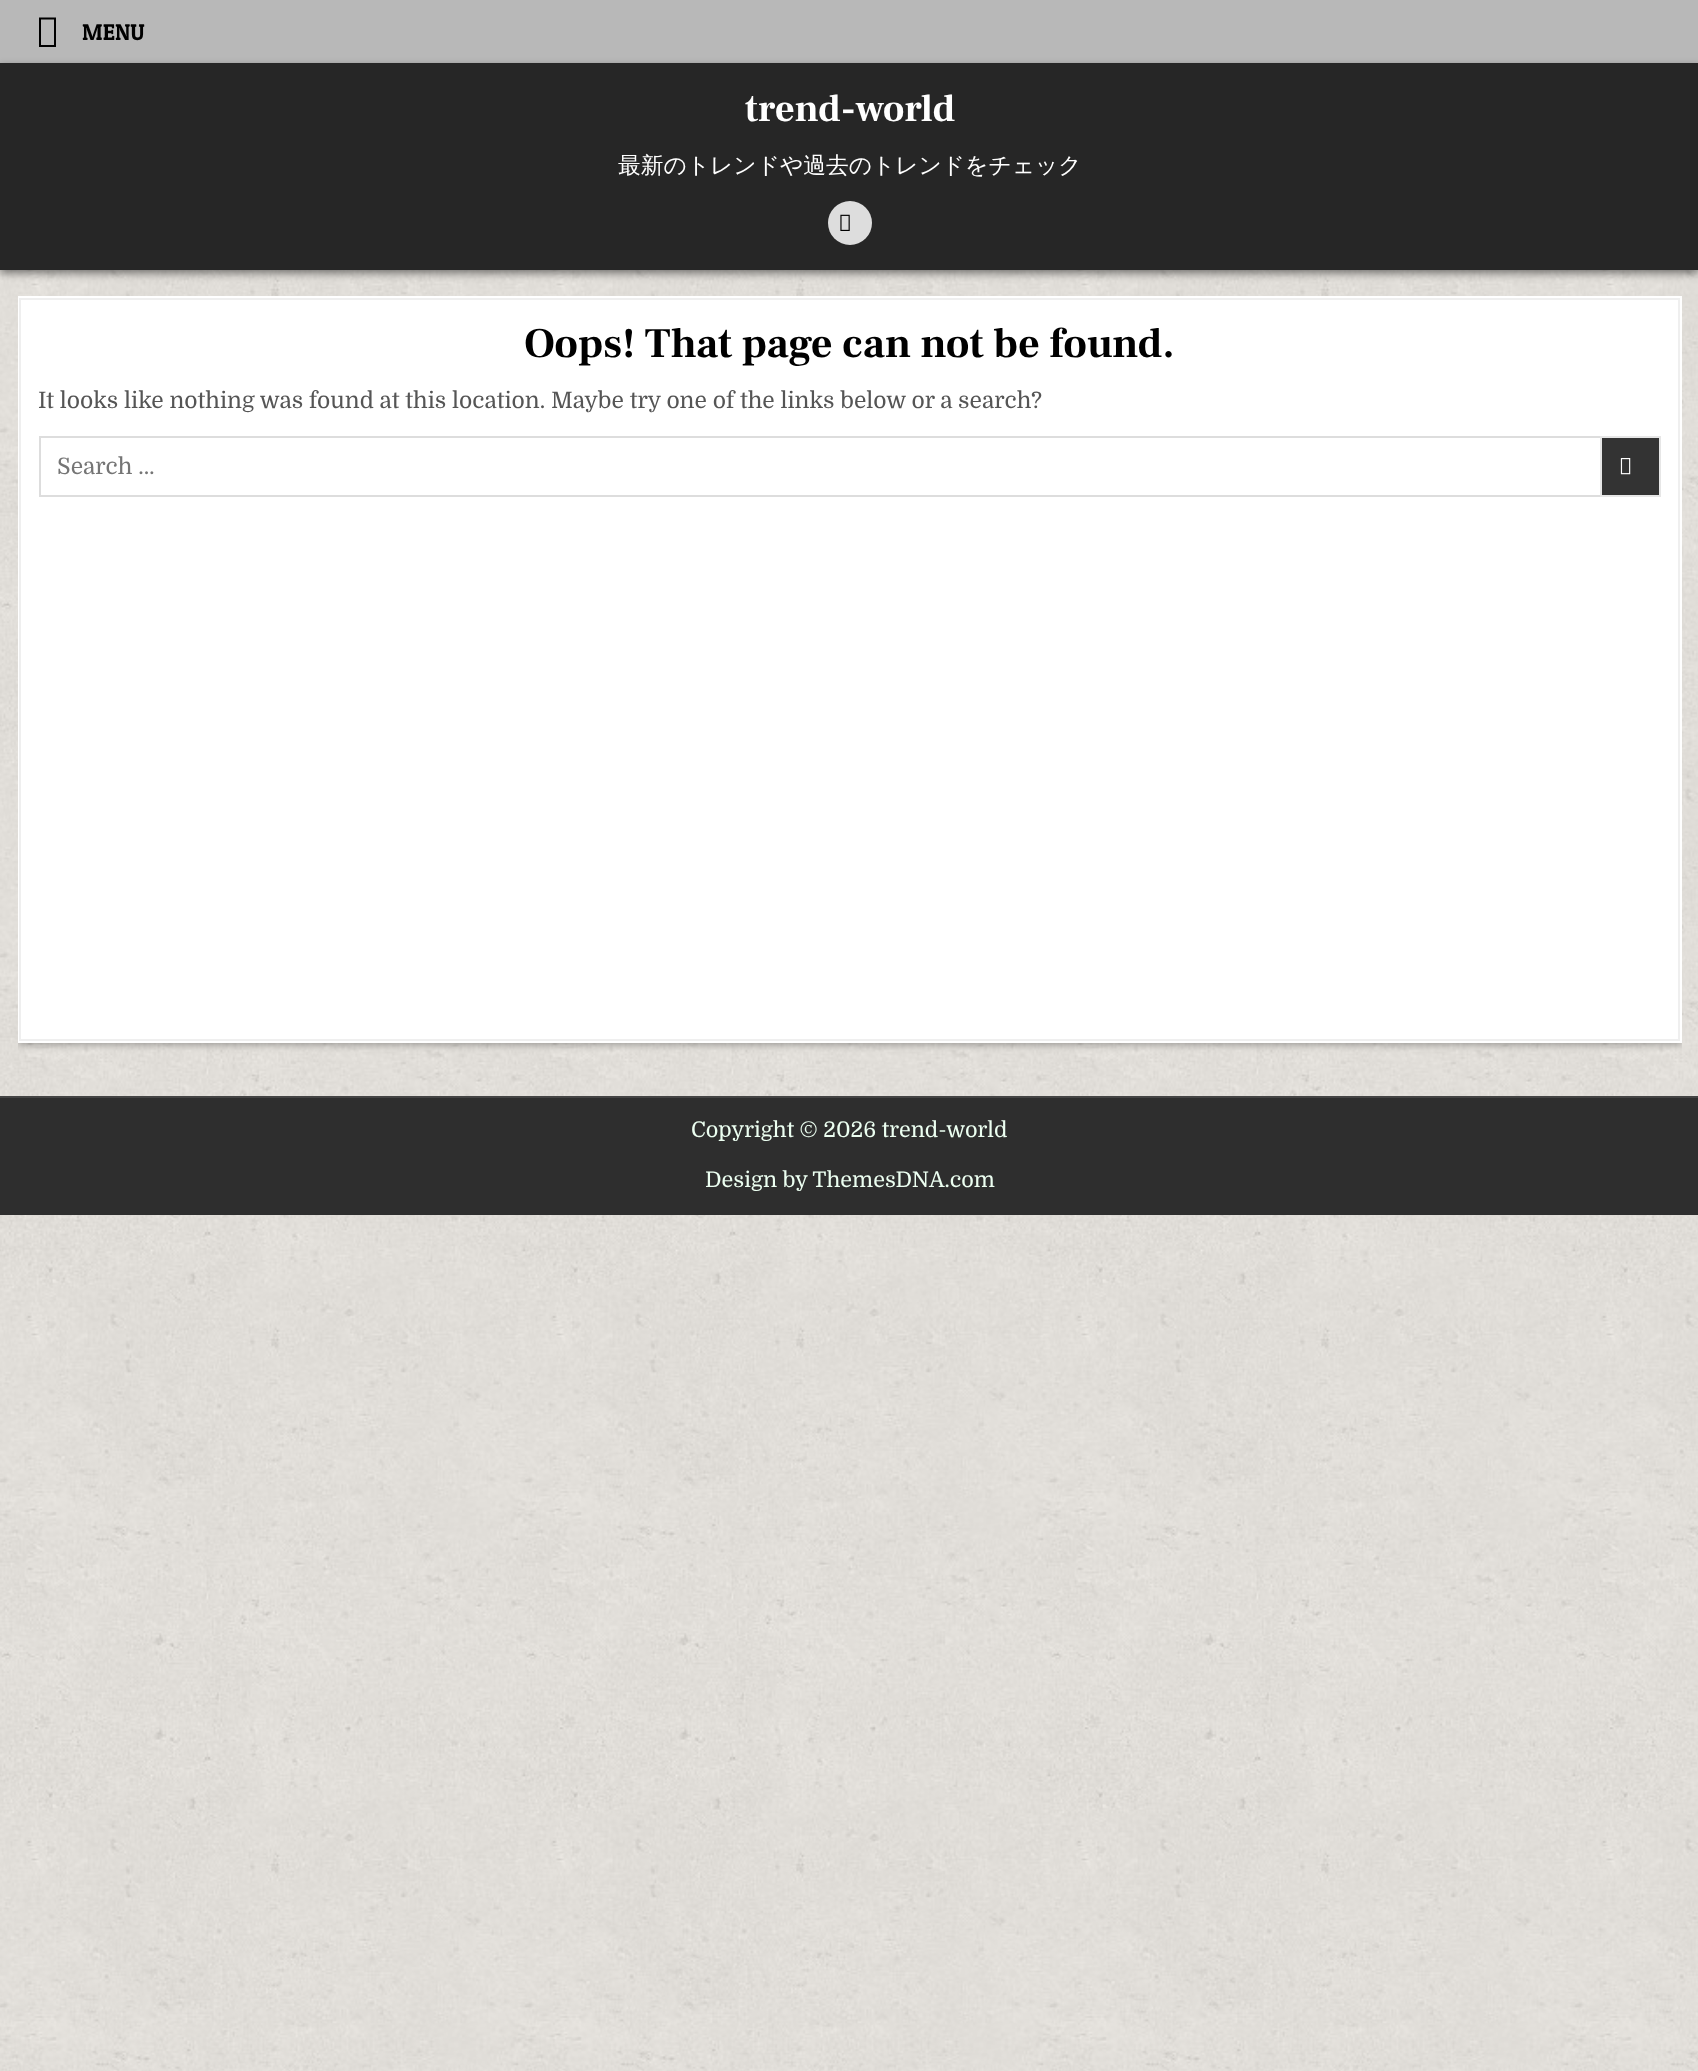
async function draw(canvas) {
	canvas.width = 1698;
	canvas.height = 2071;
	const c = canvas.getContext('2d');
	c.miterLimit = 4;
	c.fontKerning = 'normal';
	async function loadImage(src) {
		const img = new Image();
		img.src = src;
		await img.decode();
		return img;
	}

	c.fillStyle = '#fff';
	c.fillRect(0, 0, 1698, 2071);
	c.drawImage(await loadImage('img1.png'), 0, 270, 1698, 1801);
	c.fillStyle = '#b8b8b8';
	c.fillRect(0, 0, 1698, 63);
	c.fillStyle = '#000';
	c.beginPath();
	c.moveTo(39, 47);
	c.lineTo(39, 17.5);
	c.lineTo(56, 17.5);
	c.lineTo(56, 47);
	c.closePath();
	c.moveTo(41, 45);
	c.lineTo(54, 45);
	c.lineTo(54, 19.5);
	c.lineTo(41, 19.5);
	c.closePath();
	c.fill();
	c.font = '22.75px Patua One';
	c.fillText('MENU', 82, 40);
	c.fillStyle = '#00000080';
	c.filter = 'blur(4.5px)';
	c.beginPath();
	c.rect(0, 67, 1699, 206);
	c.fill();
	c.filter = 'none';
	c.fillStyle = '#262626';
	c.fillRect(0, 63, 1698, 207);
	c.font = 'bold 38.5px Frank Ruhl Libre';
	c.fillStyle = '#fff';
	c.fillText('trend-world', 745, 121);
	c.font = '500 22.75px WenQuanYi Zen Hei';
	c.fillText('最新のトレンドや過去のトレンドをチェック', 618, 173);
	c.fillStyle = '#ddd';
	c.beginPath();
	c.arc(850, 223, 22, 0, 2 * Math.PI);
	c.fill();
	c.drawImage(await loadImage('img2.png'), 840, 214, 10, 17);
	c.save();
	c.beginPath();
	c.rect(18, 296, 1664, 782);
	c.clip();
	c.fillStyle = '#0000004d';
	c.filter = 'blur(3.5px)';
	c.beginPath();
	c.rect(18, 298, 1664, 747);
	c.fill();
	c.filter = 'none';
	c.restore();
	c.fillStyle = '#fff';
	c.fillRect(18, 296, 1664, 747);
	c.strokeStyle = '#efefef';
	c.lineWidth = 2;
	c.strokeRect(20, 299, 1659, 741);
	c.font = 'bold 42px Frank Ruhl Libre';
	c.fillStyle = '#000';
	c.fillText('Oops! That page can not be found.', 524, 357);
	c.font = '22.75px Domine';
	c.fillStyle = '#555';
	c.fillText('It looks like nothing was found at this location. Maybe try one of the links below or a search?', 38, 408);
	c.strokeStyle = '#ddd';
	c.strokeRect(40, 437, 1620, 59);
	c.fillStyle = '#757575';
	c.fillText('Search …', 57, 474);
	c.fillStyle = '#333';
	c.beginPath();
	c.rect(1601, 437, 59, 59);
	c.fill();
	c.strokeStyle = '#e6e6e6';
	c.stroke();
	c.drawImage(await loadImage('img3.png'), 1620, 458, 11, 17);
	c.fillStyle = '#2e2e2e';
	c.fillRect(0, 1098, 1698, 117);
	c.fillStyle = '#444';
	c.fillRect(0, 1096, 1698, 2);
	c.font = '21.6px Domine';
	c.fillStyle = '#ecfff1';
	c.fillText('Copyright © 2026 trend-world', 691, 1137);
	c.fillText('Design by ThemesDNA.com', 705, 1187);
}

draw(document.querySelector('canvas'));
